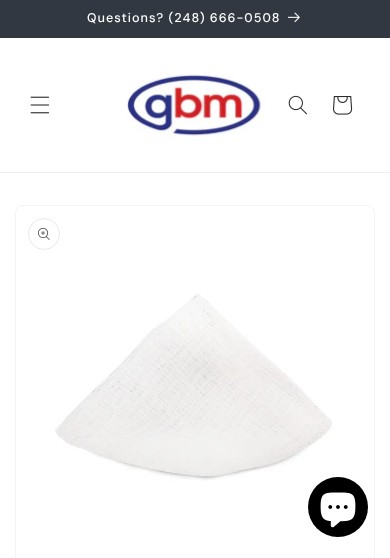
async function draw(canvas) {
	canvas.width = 390;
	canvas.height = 558;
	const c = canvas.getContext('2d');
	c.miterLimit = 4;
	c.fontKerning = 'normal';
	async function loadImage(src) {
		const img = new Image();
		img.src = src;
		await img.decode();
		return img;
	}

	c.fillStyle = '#fff';
	c.fillRect(0, 0, 390, 558);
	c.fillStyle = '#323841';
	c.fillRect(0, 0, 390, 38);
	c.letterSpacing = '1px';
	c.font = '500 12.6px DM Sans';
	c.fillStyle = '#fff';
	c.fillText('Questions? (248) 666-0508', 87, 22);
	c.drawImage(await loadImage('img1.png'), 288, 12, 12, 11);
	c.fillStyle = '#eee';
	c.fillRect(0, 172, 390, 1);
	c.drawImage(await loadImage('img2.png'), 30, 96, 20, 18);
	c.drawImage(await loadImage('img3.png'), 127, 74, 136, 63);
	c.drawImage(await loadImage('img4.png'), 288, 95, 19, 20);
	c.drawImage(await loadImage('img5.png'), 333, 96, 20, 19);
	c.beginPath();
	c.roundRect(15.5, 205.5, 359, 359, 7.5);
	c.strokeStyle = '#f4f4f4';
	c.stroke();
	c.beginPath();
	c.arc(44, 234, 15.5, 0, 2 * Math.PI);
	c.strokeStyle = '#e9e9e9';
	c.stroke();
	c.drawImage(await loadImage('img6.png'), 38, 228, 12, 12);
	c.drawImage(await loadImage('img7.png'), 55, 293, 277, 188);
	c.fillStyle = '#000';
	c.beginPath();
	c.arc(338, 507, 30, 0, 2 * Math.PI);
	c.fill();
	c.drawImage(await loadImage('img8.png'), 320, 492, 36, 36);
}

draw(document.querySelector('canvas'));
